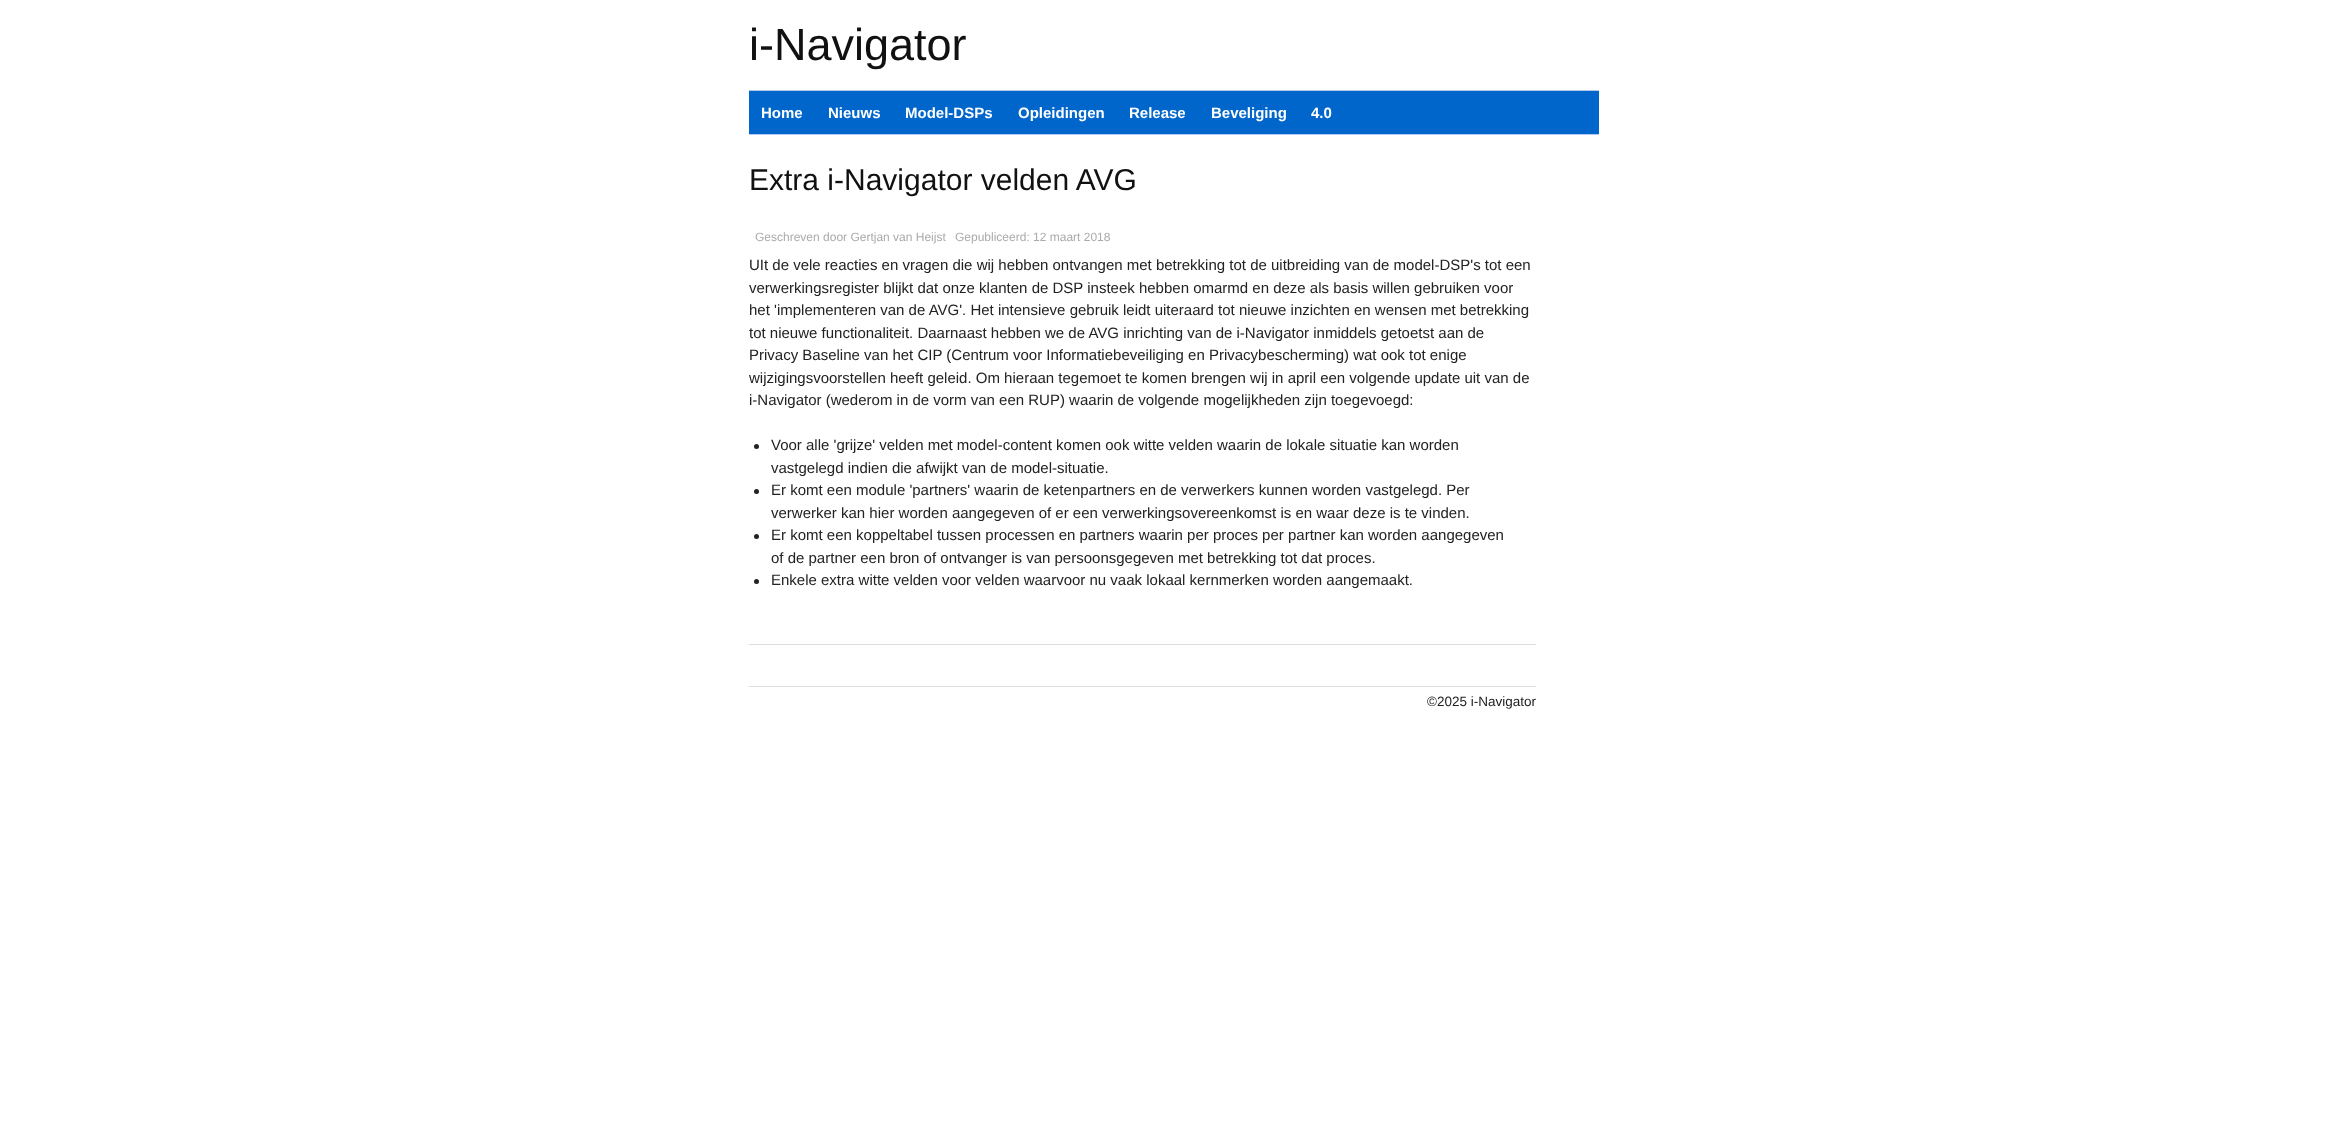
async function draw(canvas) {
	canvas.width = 2347;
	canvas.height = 1121;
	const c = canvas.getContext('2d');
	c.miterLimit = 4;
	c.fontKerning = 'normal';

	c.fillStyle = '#fff';
	c.fillRect(0, 0, 2347, 1121);
	c.font = '45px Liberation Sans';
	c.fillStyle = '#111';
	c.fillText('i-Navigator', 749, 60);
	for (const [x, y, w, h, color] of [
		[749, 91, 850, 43, '#06c'],
		[749, 90, 850, 1, '#b3c9e4'],
		[749, 134, 850, 1, '#b3c9ef'],
	]) {
		c.fillStyle = color;
		c.fillRect(x, y, w, h);
	}
	c.font = 'bold 15px Liberation Sans';
	c.fillStyle = '#fff';
	for (const [text, x, y] of [
		['Home', 761, 118],
		['Nieuws', 828, 118],
		['Model-DSPs', 905, 118],
		['Opleidingen', 1018, 118],
		['Release', 1129, 118],
		['Beveliging', 1211, 118],
		['4.0', 1311, 118],
	]) {
		c.fillText(text, x, y);
	}
	c.font = '30px Liberation Sans';
	c.fillStyle = '#111';
	c.fillText('Extra i-Navigator velden AVG', 749, 190);
	c.font = '12px Liberation Sans';
	c.fillStyle = '#aaa';
	c.fillText('Geschreven door Gertjan van Heijst', 755, 241);
	c.fillText('Gepubliceerd: 12 maart 2018', 955, 241);
	c.font = '15px Liberation Sans';
	c.fillStyle = '#222';
	for (const [text, x, y] of [
		['UIt de vele reacties en vragen die wij hebben ontvangen met betrekking tot de uitbreiding van de model-DSP\'s tot een', 749, 270],
		['verwerkingsregister blijkt dat onze klanten de DSP insteek hebben omarmd en deze als basis willen gebruiken voor', 749, 293],
		['het \'implementeren van de AVG\'. Het intensieve gebruik leidt uiteraard tot nieuwe inzichten en wensen met betrekking', 749, 315],
		['tot nieuwe functionaliteit. Daarnaast hebben we de AVG inrichting van de i-Navigator inmiddels getoetst aan de', 749, 338],
		['Privacy Baseline van het CIP (Centrum voor Informatiebeveiliging en Privacybescherming) wat ook tot enige', 749, 360],
		['wijzigingsvoorstellen heeft geleid. Om hieraan tegemoet te komen brengen wij in april een volgende update uit van de', 749, 383],
		['i-Navigator (wederom in de vorm van een RUP) waarin de volgende mogelijkheden zijn toegevoegd:', 749, 405],
	]) {
		c.fillText(text, x, y);
	}
	c.beginPath();
	c.arc(756.5, 446.5, 2.5, 0, 2 * Math.PI);
	c.fill();
	c.fillText('Voor alle \'grijze\' velden met model-content komen ook witte velden waarin de lokale situatie kan worden', 771, 450);
	c.fillText('vastgelegd indien die afwijkt van de model-situatie.', 771, 473);
	c.beginPath();
	c.arc(756.5, 491.5, 2.5, 0, 2 * Math.PI);
	c.fill();
	c.fillText('Er komt een module \'partners\' waarin de ketenpartners en de verwerkers kunnen worden vastgelegd. Per', 771, 495);
	c.fillText('verwerker kan hier worden aangegeven of er een verwerkingsovereenkomst is en waar deze is te vinden.', 771, 518);
	c.beginPath();
	c.arc(756.5, 536.5, 2.5, 0, 2 * Math.PI);
	c.fill();
	c.fillText('Er komt een koppeltabel tussen processen en partners waarin per proces per partner kan worden aangegeven', 771, 540);
	c.fillText('of de partner een bron of ontvanger is van persoonsgegeven met betrekking tot dat proces.', 771, 563);
	c.beginPath();
	c.arc(756.5, 581.5, 2.5, 0, 2 * Math.PI);
	c.fill();
	c.fillText('Enkele extra witte velden voor velden waarvoor nu vaak lokaal kernmerken worden aangemaakt.', 771, 585);
	c.fillStyle = '#ddd';
	c.fillRect(749, 644, 787, 1);
	c.fillRect(749, 686, 787, 1);
	c.font = '13.5px Liberation Sans';
	c.fillStyle = '#222';
	c.fillText('©2025 i-Navigator', 1427, 706);
}

draw(document.querySelector('canvas'));
